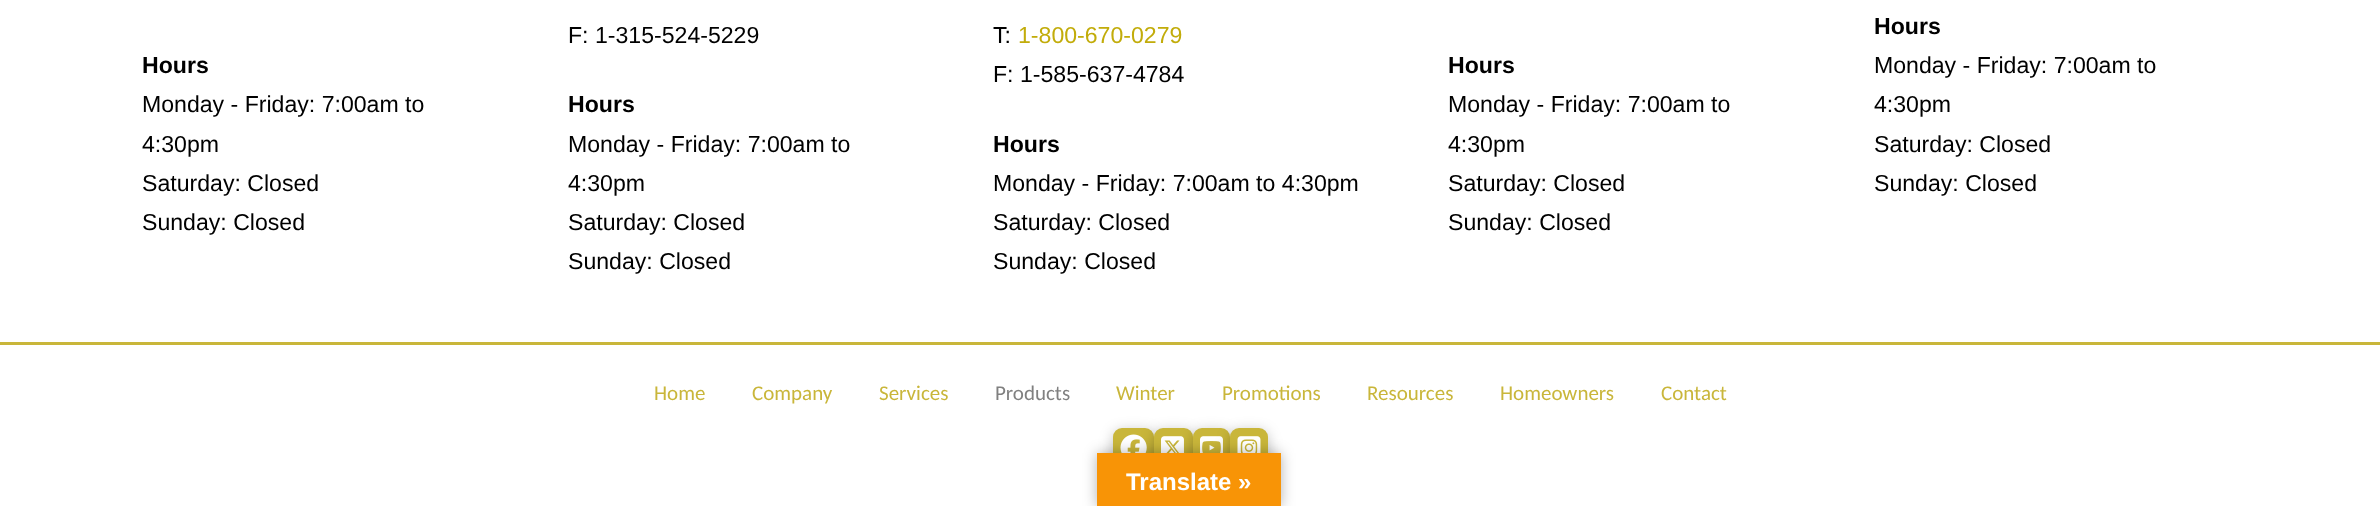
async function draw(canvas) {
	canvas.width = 2380;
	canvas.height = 506;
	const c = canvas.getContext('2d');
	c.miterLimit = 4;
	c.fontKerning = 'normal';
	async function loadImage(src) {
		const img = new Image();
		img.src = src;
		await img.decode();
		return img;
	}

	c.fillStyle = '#fff';
	c.fillRect(0, 0, 2380, 506);
	c.font = 'bold 23.1px Liberation Sans';
	c.fillStyle = '#000';
	c.fillText('Hours', 142, 73);
	c.font = '23.1px Liberation Sans';
	for (const [text, x, y] of [
		['Monday - Friday: 7:00am to', 142, 112],
		['4:30pm', 142, 152],
		['Saturday: Closed', 142, 191],
		['Sunday: Closed', 142, 230],
		['F: 1-315-524-5229', 568, 43],
	]) {
		c.fillText(text, x, y);
	}
	c.font = 'bold 23.1px Liberation Sans';
	c.fillText('Hours', 568, 112);
	c.font = '23.1px Liberation Sans';
	for (const [text, x, y] of [
		['Monday - Friday: 7:00am to', 568, 152],
		['4:30pm', 568, 191],
		['Saturday: Closed', 568, 230],
		['Sunday: Closed', 568, 269],
		['T:', 993, 43],
	]) {
		c.fillText(text, x, y);
	}
	c.fillStyle = '#c2ac0a';
	c.fillText('1-800-670-0279', 1018, 43);
	c.fillStyle = '#000';
	c.fillText('F: 1-585-637-4784', 993, 82);
	c.font = 'bold 23.1px Liberation Sans';
	c.fillText('Hours', 993, 152);
	c.font = '23.1px Liberation Sans';
	for (const [text, x, y] of [
		['Monday - Friday: 7:00am to 4:30pm', 993, 191],
		['Saturday: Closed', 993, 230],
		['Sunday: Closed', 993, 269],
	]) {
		c.fillText(text, x, y);
	}
	c.font = 'bold 23.1px Liberation Sans';
	c.fillText('Hours', 1448, 73);
	c.font = '23.1px Liberation Sans';
	for (const [text, x, y] of [
		['Monday - Friday: 7:00am to', 1448, 112],
		['4:30pm', 1448, 152],
		['Saturday: Closed', 1448, 191],
		['Sunday: Closed', 1448, 230],
	]) {
		c.fillText(text, x, y);
	}
	c.font = 'bold 23.1px Liberation Sans';
	c.fillText('Hours', 1874, 34);
	c.font = '23.1px Liberation Sans';
	for (const [text, x, y] of [
		['Monday - Friday: 7:00am to', 1874, 73],
		['4:30pm', 1874, 112],
		['Saturday: Closed', 1874, 152],
		['Sunday: Closed', 1874, 191],
	]) {
		c.fillText(text, x, y);
	}
	c.fillStyle = '#c9b63a';
	c.fillRect(0, 342, 2380, 3);
	c.font = '21px Carlito';
	for (const [text, x, y] of [
		['Home', 654, 400],
		['Company', 752, 400],
		['Services', 879, 400],
	]) {
		c.fillText(text, x, y);
	}
	c.fillStyle = '#808080';
	c.fillText('Products', 995, 400);
	c.fillStyle = '#c9b63a';
	for (const [text, x, y] of [
		['Winter', 1116, 400],
		['Promotions', 1222, 400],
		['Resources', 1367, 400],
		['Homeowners', 1500, 400],
		['Contact', 1661, 400],
	]) {
		c.fillText(text, x, y);
	}
	c.fillStyle = '#00000040';
	c.filter = 'blur(7px)';
	c.beginPath();
	c.roundRect(1113, 431, 41, 42, 9);
	c.fill();
	c.filter = 'none';
	c.fillStyle = '#c9b63a';
	c.beginPath();
	c.roundRect(1113, 428, 41, 42, 9);
	c.fill();
	c.drawImage(await loadImage('img1.png'), 1120, 434, 27, 19);
	c.fillStyle = '#00000040';
	c.filter = 'blur(7px)';
	c.beginPath();
	c.roundRect(1154, 431, 39, 42, 9);
	c.fill();
	c.filter = 'none';
	c.fillStyle = '#c9b63a';
	c.beginPath();
	c.roundRect(1154, 428, 39, 42, 9);
	c.fill();
	c.drawImage(await loadImage('img2.png'), 1161, 436, 23, 17);
	c.fillStyle = '#00000040';
	c.filter = 'blur(7px)';
	c.beginPath();
	c.roundRect(1193, 431, 37, 42, 9);
	c.fill();
	c.filter = 'none';
	c.fillStyle = '#c9b63a';
	c.beginPath();
	c.roundRect(1193, 428, 37, 42, 9);
	c.fill();
	c.drawImage(await loadImage('img3.png'), 1200, 436, 23, 17);
	c.fillStyle = '#00000040';
	c.filter = 'blur(7px)';
	c.beginPath();
	c.roundRect(1230, 431, 38, 42, 9);
	c.fill();
	c.filter = 'none';
	c.fillStyle = '#c9b63a';
	c.beginPath();
	c.roundRect(1230, 428, 38, 42, 9);
	c.fill();
	c.drawImage(await loadImage('img4.png'), 1237, 436, 24, 17);
	c.fillStyle = '#0000004d';
	c.filter = 'blur(7px)';
	c.beginPath();
	c.rect(1097, 453, 184, 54);
	c.fill();
	c.filter = 'none';
	c.fillStyle = '#f89406';
	c.fillRect(1097, 453, 184, 53);
	c.font = 'bold 24px Liberation Sans';
	c.fillStyle = '#fff';
	c.fillText('Translate »', 1126, 490);
}

draw(document.querySelector('canvas'));
